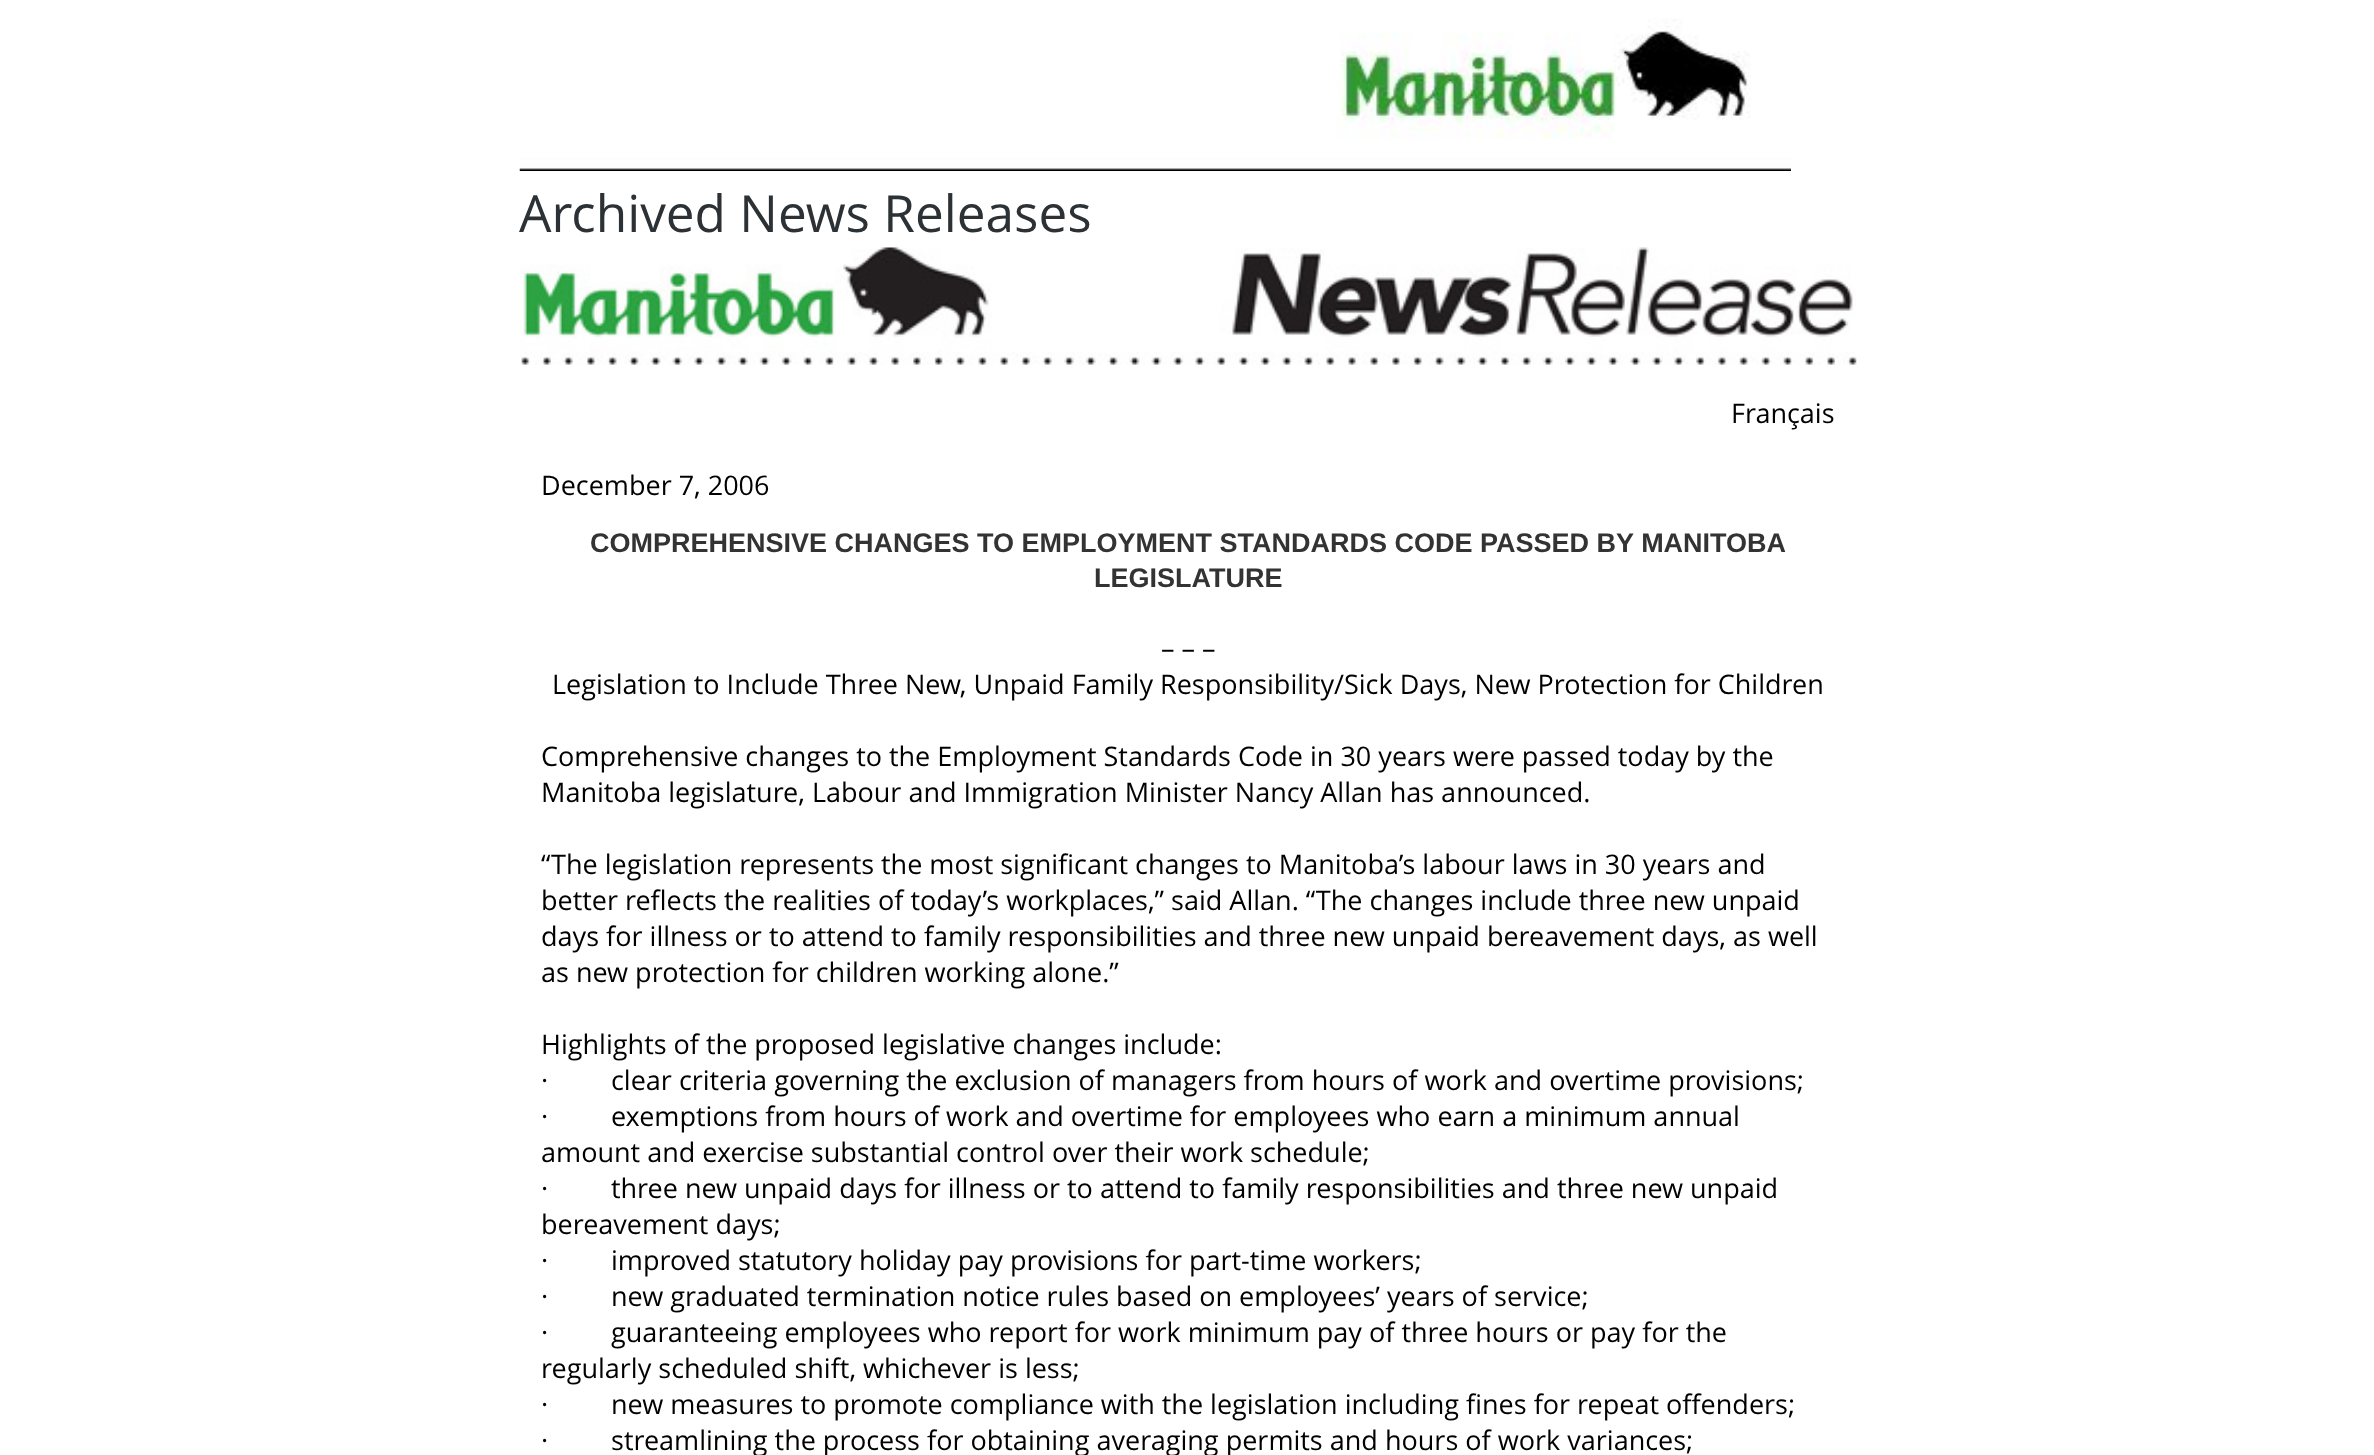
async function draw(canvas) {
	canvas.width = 2374;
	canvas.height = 1455;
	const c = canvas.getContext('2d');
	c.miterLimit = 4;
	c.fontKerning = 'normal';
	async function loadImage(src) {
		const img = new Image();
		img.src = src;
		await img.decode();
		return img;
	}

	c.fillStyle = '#fff';
	c.fillRect(0, 0, 2374, 1455);
	c.drawImage(await loadImage('img1.png'), 519, 18, 1272, 153);
	c.font = '51.25px Open Sans';
	c.fillStyle = '#2c3135';
	c.fillText('Archived News Releases', 519, 232);
	c.drawImage(await loadImage('img2.png'), 520, 247, 1337, 118);
	c.font = '27px Open Sans';
	c.fillStyle = '#000';
	c.fillText('Français', 1731, 423);
	c.fillText('December 7, 2006', 541, 495);
	c.font = 'bold 27px Liberation Sans';
	c.fillStyle = '#333';
	c.fillText('COMPREHENSIVE CHANGES TO EMPLOYMENT STANDARDS CODE PASSED BY MANITOBA', 590, 552);
	c.fillText('LEGISLATURE', 1094, 587);
	c.font = '27px Open Sans';
	c.fillStyle = '#000';
	for (const [text, x, y] of [
		['– – –', 1161, 658],
		['Legislation to Include Three New, Unpaid Family Responsibility/Sick Days, New Protection for Children', 552, 694],
		['Comprehensive changes to the Employment Standards Code in 30 years were passed today by the', 541, 766],
		['Manitoba legislature, Labour and Immigration Minister Nancy Allan has announced.', 541, 802],
		['“The legislation represents the most significant changes to Manitoba’s labour laws in 30 years and', 541, 874],
		['better reflects the realities of today’s workplaces,” said Allan. “The changes include three new unpaid', 541, 910],
		['days for illness or to attend to family responsibilities and three new unpaid bereavement days, as well', 541, 946],
		['as new protection for children working alone.”', 541, 982],
		['Highlights of the proposed legislative changes include:', 541, 1054],
		['·', 541, 1090],
		['clear criteria governing the exclusion of managers from hours of work and overtime provisions;', 611, 1090],
		['·', 541, 1126],
		['exemptions from hours of work and overtime for employees who earn a minimum annual', 611, 1126],
		['amount and exercise substantial control over their work schedule;', 541, 1162],
		['·', 541, 1198],
		['three new unpaid days for illness or to attend to family responsibilities and three new unpaid', 611, 1198],
		['bereavement days;', 541, 1234],
		['·', 541, 1270],
		['improved statutory holiday pay provisions for part-time workers;', 611, 1270],
		['·', 541, 1306],
		['new graduated termination notice rules based on employees’ years of service;', 611, 1306],
		['·', 541, 1342],
		['guaranteeing employees who report for work minimum pay of three hours or pay for the', 611, 1342],
		['regularly scheduled shift, whichever is less;', 541, 1378],
		['·', 541, 1414],
		['new measures to promote compliance with the legislation including fines for repeat offenders;', 611, 1414],
		['·', 541, 1450],
		['streamlining the process for obtaining averaging permits and hours of work variances;', 611, 1450],
	]) {
		c.fillText(text, x, y);
	}
}

draw(document.querySelector('canvas'));
